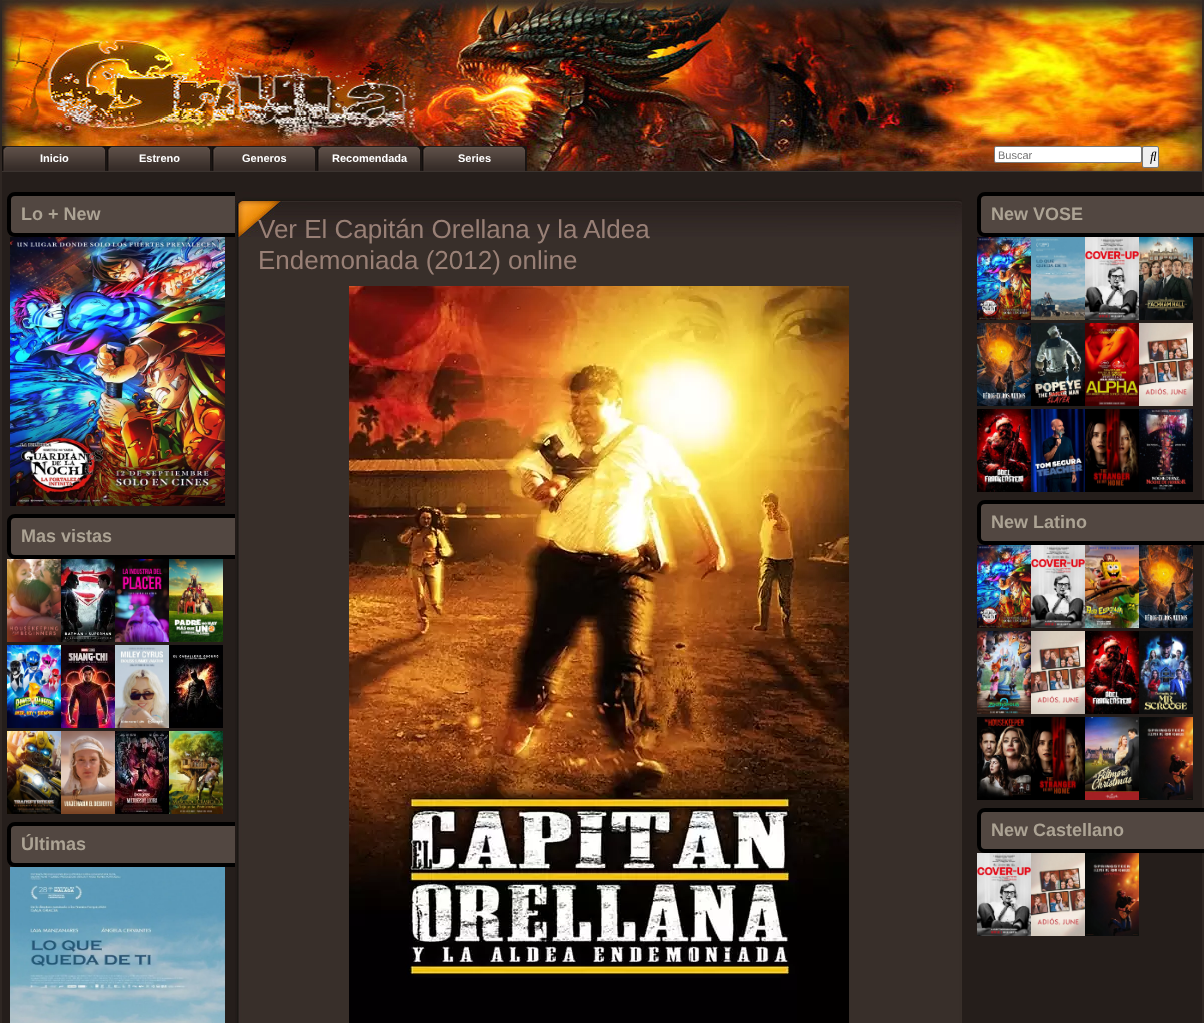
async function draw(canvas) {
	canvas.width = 1204;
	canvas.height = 1023;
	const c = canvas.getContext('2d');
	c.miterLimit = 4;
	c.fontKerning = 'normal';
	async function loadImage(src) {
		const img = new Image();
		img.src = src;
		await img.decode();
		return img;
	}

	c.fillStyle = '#2f2723';
	c.fillRect(0, 0, 1204, 1023);
	c.drawImage(await loadImage('img1.png'), 2, 0, 1200, 116);
	c.drawImage(await loadImage('img2.png'), 2, 116, 1200, 55);
	c.drawImage(await loadImage('img3.png'), 2, 146, 105, 25);
	c.font = 'bold 11px Liberation Sans';
	c.fillStyle = '#fff';
	c.fillText('Inicio', 40, 162);
	c.drawImage(await loadImage('img3.png'), 107, 146, 105, 25);
	c.fillText('Estreno', 139, 162);
	c.drawImage(await loadImage('img3.png'), 212, 146, 105, 25);
	c.fillText('Generos', 242, 162);
	c.drawImage(await loadImage('img3.png'), 317, 146, 105, 25);
	c.fillText('Recomendada', 332, 162);
	c.drawImage(await loadImage('img3.png'), 422, 146, 105, 25);
	c.fillText('Series', 458, 162);
	c.beginPath();
	c.roundRect(994.5, 146.5, 147, 16, 1.5);
	c.fill();
	c.strokeStyle = '#767676';
	c.stroke();
	c.font = '11px Liberation Sans';
	c.fillStyle = '#757575';
	c.fillText('Buscar', 998, 159);
	c.fillStyle = '#efefef';
	c.beginPath();
	c.roundRect(1142.5, 146.5, 16, 21, 1.5);
	c.fill();
	c.stroke();
	c.drawImage(await loadImage('img4.png'), 1150, 151, 7, 13);
	c.fillStyle = '#251e1b';
	c.fillRect(2, 172, 1200, 851);
	c.fillStyle = '#3b3430';
	c.fillRect(2, 171, 1200, 1);
	c.fillStyle = '#524741';
	c.beginPath();
	c.roundRect(9, 194, 234, 41, 6);
	c.fill();
	c.strokeStyle = '#000';
	c.lineWidth = 4;
	c.stroke();
	c.font = 'bold 18px Liberation Sans';
	c.fillStyle = '#aca394';
	c.fillText('Lo + New', 21, 220);
	c.drawImage(await loadImage('img5.png'), 10, 237, 215, 269);
	c.fillStyle = '#524741';
	c.beginPath();
	c.roundRect(9, 516, 234, 41, 6);
	c.fill();
	c.stroke();
	c.fillStyle = '#aca394';
	c.fillText('Mas vistas', 21, 542);
	c.drawImage(await loadImage('img6.png'), 7, 559, 54, 83);
	c.drawImage(await loadImage('img7.png'), 61, 559, 54, 83);
	c.drawImage(await loadImage('img8.png'), 115, 559, 54, 83);
	c.drawImage(await loadImage('img9.png'), 169, 559, 54, 83);
	c.drawImage(await loadImage('img10.png'), 7, 645, 54, 83);
	c.drawImage(await loadImage('img11.png'), 61, 645, 54, 83);
	c.drawImage(await loadImage('img12.png'), 115, 645, 54, 83);
	c.drawImage(await loadImage('img13.png'), 169, 645, 54, 83);
	c.drawImage(await loadImage('img14.png'), 7, 731, 54, 83);
	c.drawImage(await loadImage('img15.png'), 61, 731, 54, 83);
	c.drawImage(await loadImage('img16.png'), 115, 731, 54, 83);
	c.drawImage(await loadImage('img17.png'), 169, 731, 54, 83);
	c.fillStyle = '#524741';
	c.beginPath();
	c.roundRect(9, 824, 234, 41, 6);
	c.fill();
	c.stroke();
	c.fillStyle = '#aca394';
	c.fillText('Últimas', 21, 850);
	c.drawImage(await loadImage('img18.png'), 10, 867, 215, 156);
	c.fillStyle = '#524741';
	c.beginPath();
	c.roundRect(979, 194, 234, 41, 6);
	c.fill();
	c.stroke();
	c.fillStyle = '#aca394';
	c.fillText('New VOSE', 991, 220);
	c.drawImage(await loadImage('img19.png'), 977, 237, 54, 83);
	c.drawImage(await loadImage('img20.png'), 1031, 237, 54, 83);
	c.drawImage(await loadImage('img21.png'), 1085, 237, 54, 83);
	c.drawImage(await loadImage('img22.png'), 1139, 237, 54, 83);
	c.drawImage(await loadImage('img23.png'), 977, 323, 54, 83);
	c.drawImage(await loadImage('img24.png'), 1031, 323, 54, 83);
	c.drawImage(await loadImage('img25.png'), 1085, 323, 54, 83);
	c.drawImage(await loadImage('img26.png'), 1139, 323, 54, 83);
	c.drawImage(await loadImage('img27.png'), 977, 409, 54, 83);
	c.drawImage(await loadImage('img28.png'), 1031, 409, 54, 83);
	c.drawImage(await loadImage('img29.png'), 1085, 409, 54, 83);
	c.drawImage(await loadImage('img30.png'), 1139, 409, 54, 83);
	c.fillStyle = '#524741';
	c.beginPath();
	c.roundRect(979, 502, 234, 41, 6);
	c.fill();
	c.stroke();
	c.fillStyle = '#aca394';
	c.fillText('New Latino', 991, 528);
	c.drawImage(await loadImage('img19.png'), 977, 545, 54, 83);
	c.drawImage(await loadImage('img21.png'), 1031, 545, 54, 83);
	c.drawImage(await loadImage('img31.png'), 1085, 545, 54, 83);
	c.drawImage(await loadImage('img23.png'), 1139, 545, 54, 83);
	c.drawImage(await loadImage('img32.png'), 977, 631, 54, 83);
	c.drawImage(await loadImage('img26.png'), 1031, 631, 54, 83);
	c.drawImage(await loadImage('img27.png'), 1085, 631, 54, 83);
	c.drawImage(await loadImage('img33.png'), 1139, 631, 54, 83);
	c.drawImage(await loadImage('img34.png'), 977, 717, 54, 83);
	c.drawImage(await loadImage('img29.png'), 1031, 717, 54, 83);
	c.drawImage(await loadImage('img35.png'), 1085, 717, 54, 83);
	c.drawImage(await loadImage('img36.png'), 1139, 717, 54, 83);
	c.fillStyle = '#524741';
	c.beginPath();
	c.roundRect(979, 810, 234, 41, 6);
	c.fill();
	c.stroke();
	c.fillStyle = '#aca394';
	c.fillText('New Castellano', 991, 836);
	c.drawImage(await loadImage('img21.png'), 977, 853, 54, 83);
	c.drawImage(await loadImage('img26.png'), 1031, 853, 54, 83);
	c.drawImage(await loadImage('img36.png'), 1085, 853, 54, 83);
	c.drawImage(await loadImage('img37.png'), 235, 192, 727, 45);
	c.drawImage(await loadImage('img38.png'), 235, 237, 727, 786);
	c.font = '26px Liberation Sans';
	c.fillStyle = '#998076';
	c.fillText('Ver El Capitán Orellana y la Aldea', 258, 238);
	c.fillText('Endemoniada (2012) online', 258, 269);
	c.drawImage(await loadImage('img39.png'), 349, 286, 500, 737);
}

draw(document.querySelector('canvas'));
